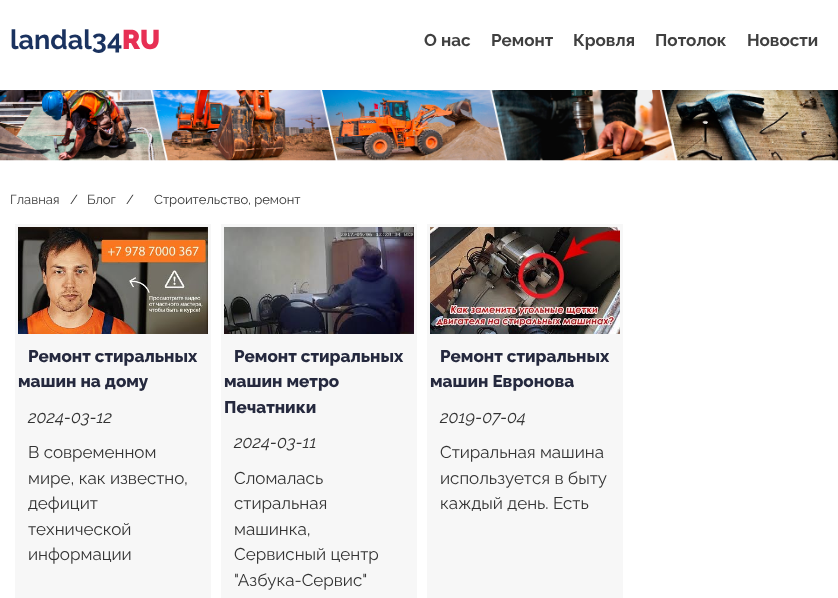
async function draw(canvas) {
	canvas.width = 838;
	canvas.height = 598;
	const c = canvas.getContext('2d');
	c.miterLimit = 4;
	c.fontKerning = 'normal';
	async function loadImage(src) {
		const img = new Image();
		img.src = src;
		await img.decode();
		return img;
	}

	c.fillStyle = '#fff';
	c.fillRect(0, 0, 838, 598);
	c.font = 'bold 27px Raleway';
	c.fillStyle = '#1a325f';
	c.fillText('landal34', 10, 49);
	c.font = '900 27px Raleway';
	c.fillStyle = '#e72f54';
	c.fillText('RU', 122, 49);
	c.font = 'bold 17px Raleway';
	c.fillStyle = '#404040';
	for (const [text, x, y] of [
		['О нас', 424, 46],
		['Ремонт', 491, 46],
		['Кровля', 573, 46],
		['Потолок', 655, 46],
		['Новости', 747, 46],
	]) {
		c.fillText(text, x, y);
	}
	c.drawImage(await loadImage('img1.png'), 0, 90, 838, 71);
	c.font = '13px Raleway';
	c.fillText('Главная', 10, 204);
	c.fillStyle = '#333';
	c.fillText('/', 70, 204);
	c.fillStyle = '#404040';
	c.fillText('Блог', 87, 204);
	c.fillStyle = '#333';
	c.fillText('/', 126, 204);
	c.fillText('Строительство, ремонт', 154, 204);
	c.fillStyle = '#f7f7f7';
	c.fillRect(15, 224, 196, 374);
	c.drawImage(await loadImage('img2.png'), 18, 227, 190, 107);
	c.font = '800 17px Raleway';
	c.fillStyle = '#25293e';
	c.fillText('Ремонт стиральных', 28, 362);
	c.fillText('машин на дому', 18, 387);
	c.font = 'italic 17px Raleway';
	c.fillStyle = '#333';
	c.fillText('2024-03-12', 28, 423);
	c.font = '17px Raleway';
	for (const [text, x, y] of [
		['В современном', 28, 458],
		['мире, как известно,', 28, 484],
		['дефицит', 28, 509],
		['технической', 28, 535],
		['информации', 28, 560],
	]) {
		c.fillText(text, x, y);
	}
	c.fillStyle = '#f7f7f7';
	c.fillRect(221, 224, 196, 374);
	c.drawImage(await loadImage('img3.png'), 224, 227, 190, 107);
	c.font = '800 17px Raleway';
	c.fillStyle = '#25293e';
	for (const [text, x, y] of [
		['Ремонт стиральных', 234, 362],
		['машин метро', 224, 387],
		['Печатники', 224, 413],
	]) {
		c.fillText(text, x, y);
	}
	c.font = 'italic 17px Raleway';
	c.fillStyle = '#333';
	c.fillText('2024-03-11', 234, 448);
	c.font = '17px Raleway';
	for (const [text, x, y] of [
		['Сломалась', 234, 484],
		['стиральная', 234, 509],
		['машинка,', 234, 535],
		['Сервисный центр', 234, 560],
		['"Азбука-Сервис"', 234, 586],
	]) {
		c.fillText(text, x, y);
	}
	c.fillStyle = '#f7f7f7';
	c.fillRect(427, 224, 196, 374);
	c.drawImage(await loadImage('img4.png'), 430, 227, 190, 107);
	c.font = '800 17px Raleway';
	c.fillStyle = '#25293e';
	c.fillText('Ремонт стиральных', 440, 362);
	c.fillText('машин Евронова', 430, 387);
	c.font = 'italic 17px Raleway';
	c.fillStyle = '#333';
	c.fillText('2019-07-04', 440, 423);
	c.font = '17px Raleway';
	for (const [text, x, y] of [
		['Стиральная машина', 440, 458],
		['используется в быту', 440, 484],
		['каждый день. Есть', 440, 509],
	]) {
		c.fillText(text, x, y);
	}
}

draw(document.querySelector('canvas'));
